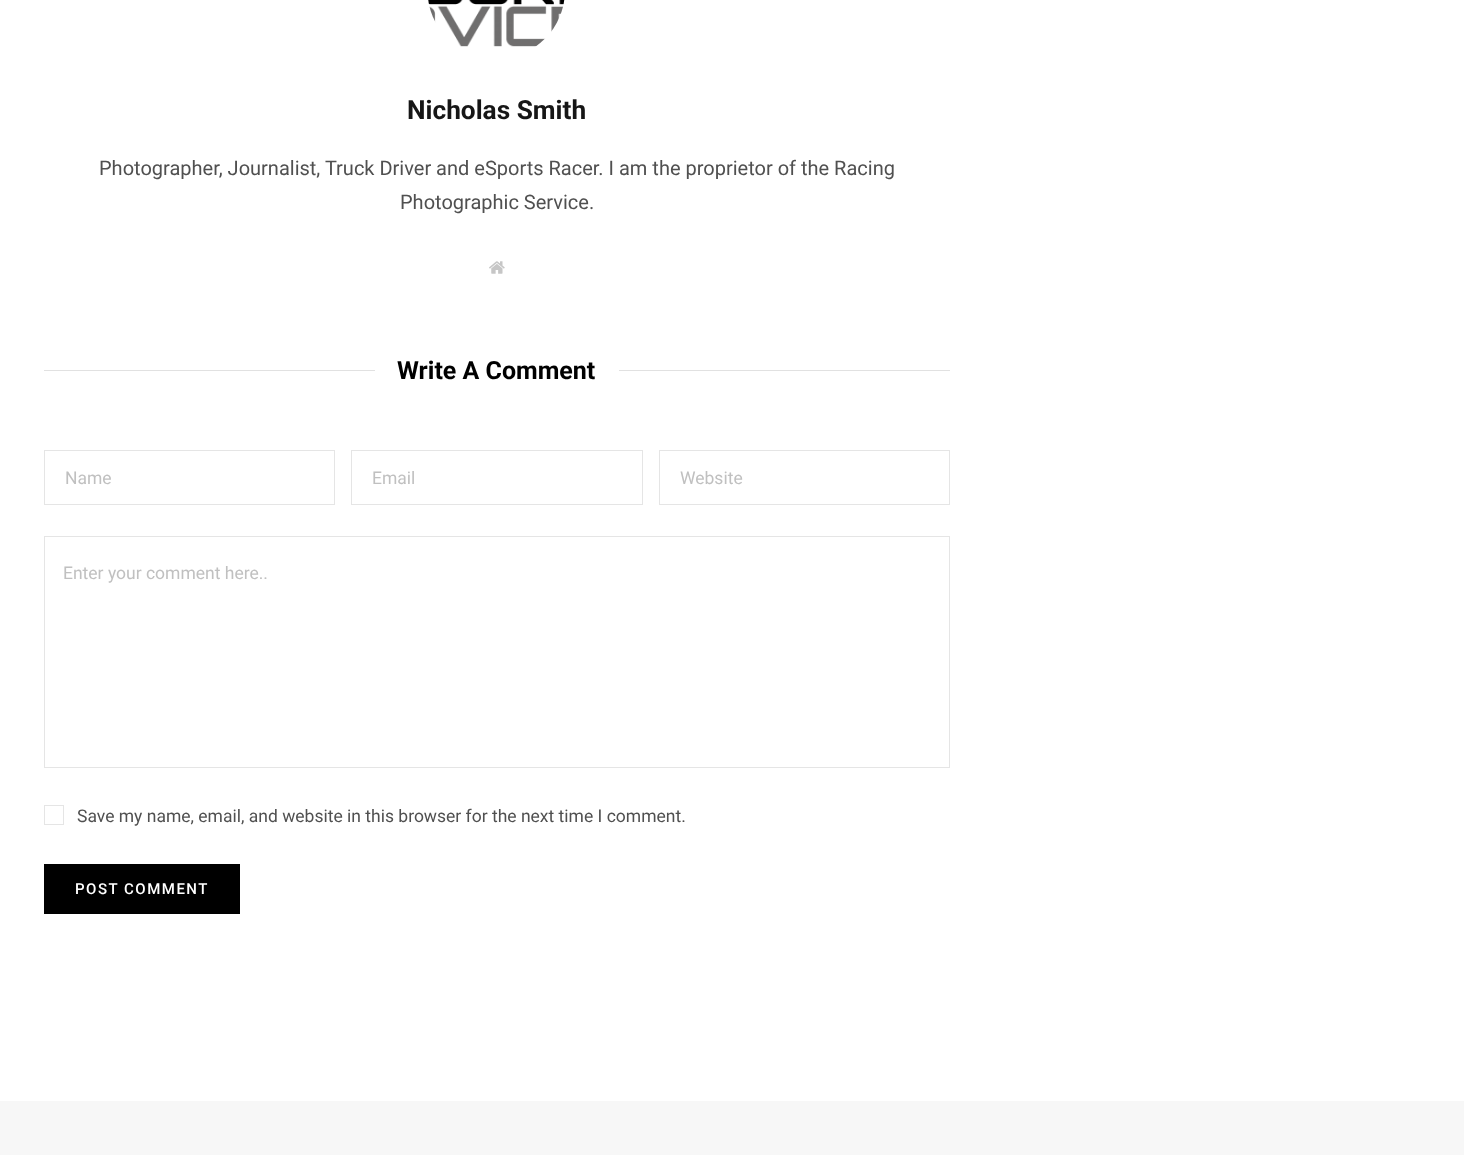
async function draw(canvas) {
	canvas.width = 1464;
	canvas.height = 1155;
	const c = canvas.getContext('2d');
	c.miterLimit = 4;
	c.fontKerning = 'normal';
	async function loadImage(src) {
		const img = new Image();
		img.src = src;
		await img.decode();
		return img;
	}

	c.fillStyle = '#fff';
	c.fillRect(0, 0, 1464, 1155);
	c.drawImage(await loadImage('img1.png'), 428, 0, 137, 47);
	c.font = 'bold 26.25px Roboto';
	c.fillStyle = '#161616';
	c.fillText('Nicholas Smith', 407, 119);
	c.font = '20px Roboto';
	c.fillStyle = '#505050';
	c.fillText('Photographer, Journalist, Truck Driver and eSports Racer. I am the proprietor of the Racing', 99, 175);
	c.fillText('Photographic Service.', 400, 209);
	c.drawImage(await loadImage('img2.png'), 489, 261, 16, 13);
	c.fillStyle = '#e1e1e1';
	c.fillRect(44, 370, 906, 1);
	c.fillStyle = '#fff';
	c.fillRect(375, 370, 244, 1);
	c.font = 'bold 25px Roboto';
	c.fillStyle = '#000';
	c.fillText('Write A Comment', 397, 379);
	c.strokeStyle = '#e5e5e5';
	c.strokeRect(44.5, 450.5, 290, 54);
	c.font = '17.5px Roboto';
	c.fillStyle = '#c0c0c0';
	c.fillText('Name', 65, 484);
	c.strokeRect(351.5, 450.5, 291, 54);
	c.fillText('Email', 372, 484);
	c.strokeRect(659.5, 450.5, 290, 54);
	c.fillText('Website', 680, 484);
	c.strokeRect(44.5, 536.5, 905, 231);
	c.fillText('Enter your comment here..', 63, 579);
	c.strokeRect(44.5, 805.5, 19, 19);
	c.fillStyle = '#505050';
	c.fillText('Save my name, email, and website in this browser for the next time I comment.', 77, 822);
	c.fillStyle = '#000';
	c.fillRect(44, 864, 196, 50);
	c.letterSpacing = '1.5px';
	c.font = '500 15px Roboto';
	c.fillStyle = '#fff';
	c.fillText('POST COMMENT', 75, 894);
	c.fillStyle = '#f7f7f7';
	c.fillRect(0, 1101, 1464, 54);
}

draw(document.querySelector('canvas'));
